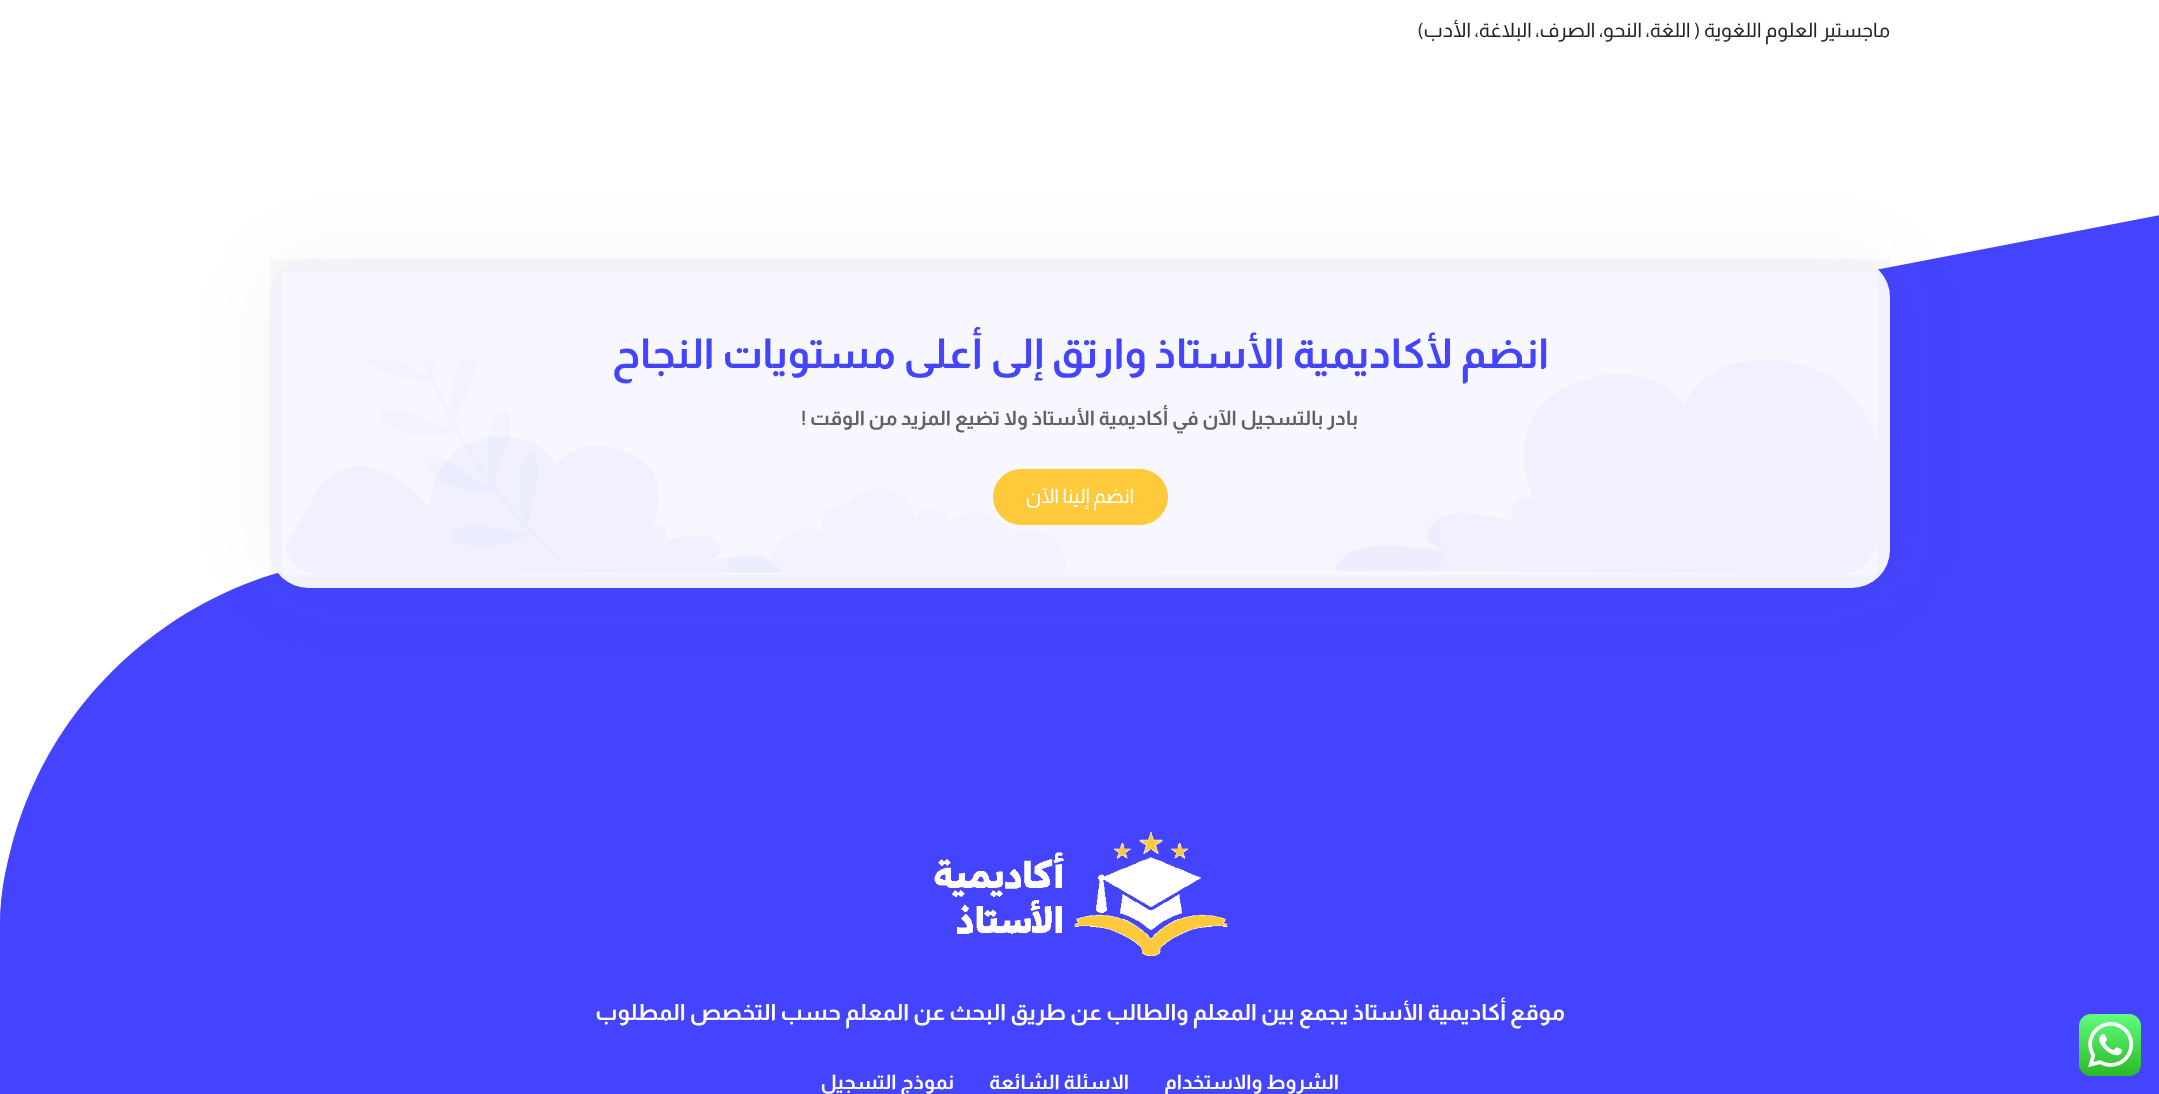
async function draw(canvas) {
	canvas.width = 2159;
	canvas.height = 1094;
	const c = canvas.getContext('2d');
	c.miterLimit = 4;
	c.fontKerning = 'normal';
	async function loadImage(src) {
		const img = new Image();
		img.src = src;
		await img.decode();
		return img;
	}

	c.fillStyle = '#fff';
	c.fillRect(0, 0, 2159, 1094);
	c.save();
	c.beginPath();
	c.rect(0, 215, 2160, 705);
	c.clip();
	c.fillStyle = '#44f';
	c.beginPath();
	c.moveTo(393, 556);
	c.lineTo(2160, 215);
	c.lineTo(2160, 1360);
	c.lineTo(0, 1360);
	c.lineTo(0, 941);
	c.bezierCurveTo(0, 728, 176, 556, 393, 556);
	c.closePath();
	c.fill();
	c.restore();
	c.fillStyle = '#44f';
	c.beginPath();
	c.moveTo(250, 674);
	c.lineTo(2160, 674);
	c.lineTo(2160, 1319);
	c.lineTo(0, 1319);
	c.lineTo(0, 924);
	c.bezierCurveTo(0, 786, 112, 674, 250, 674);
	c.closePath();
	c.fill();
	c.drawImage(await loadImage('img1.png'), 2079, 1014, 62, 62);
	c.direction = 'rtl';
	c.font = '20px Almarai';
	c.fillStyle = '#212529';
	c.fillText('ماجستير العلوم اللغوية ( اللغة، النحو، الصرف، البلاغة، الأدب)', 1890, 37);
	c.fillStyle = '#3434340d';
	c.filter = 'blur(37.5px)';
	c.beginPath();
	c.roundRect(268, 256, 1625, 334, 40);
	c.fill();
	c.filter = 'none';
	c.fillStyle = '#f7f7ff';
	c.beginPath();
	c.roundRect(270, 259, 1620, 329, 38);
	c.fill();
	c.drawImage(await loadImage('img2.png'), 285, 359, 1592, 216);
	c.strokeStyle = '#61616108';
	c.lineWidth = 13;
	c.strokeRect(276.5, 265.5, 1607, 316);
	c.font = 'bold 41.25px Almarai';
	c.fillStyle = '#44f';
	c.fillText('انضم لأكاديمية الأستاذ وارتق إلى أعلى مستويات النجاح', 1549, 368);
	c.font = 'bold 20px Almarai';
	c.fillStyle = '#616161';
	c.fillText('بادر بالتسجيل الآن في أكاديمية الأستاذ ولا تضيع المزيد من الوقت !', 1358, 425);
	c.fillStyle = '#ffc93c';
	c.beginPath();
	c.roundRect(993.5, 469.5, 174, 55, 27.5);
	c.fill();
	c.strokeStyle = '#ffc93c';
	c.lineWidth = 1;
	c.stroke();
	c.font = '20px Almarai';
	c.fillStyle = '#fff';
	c.fillText('انضم إلينا الآن', 1134, 503);
	c.drawImage(await loadImage('img3.png'), 934, 832, 294, 124);
	c.font = 'bold 22.5px Almarai';
	c.fillText('موقع أكاديمية الأستاذ يجمع بين المعلم والطالب عن طريق البحث عن المعلم حسب التخصص المطلوب', 1565, 1020);
	c.font = 'bold 20px Almarai';
	for (const [text, x, y] of [
		['الشروط والاستخدام', 1339, 1089],
		['الاسئلة الشائعة', 1129, 1089],
		['نموذج التسجيل', 954, 1089],
	]) {
		c.fillText(text, x, y);
	}
}

draw(document.querySelector('canvas'));
